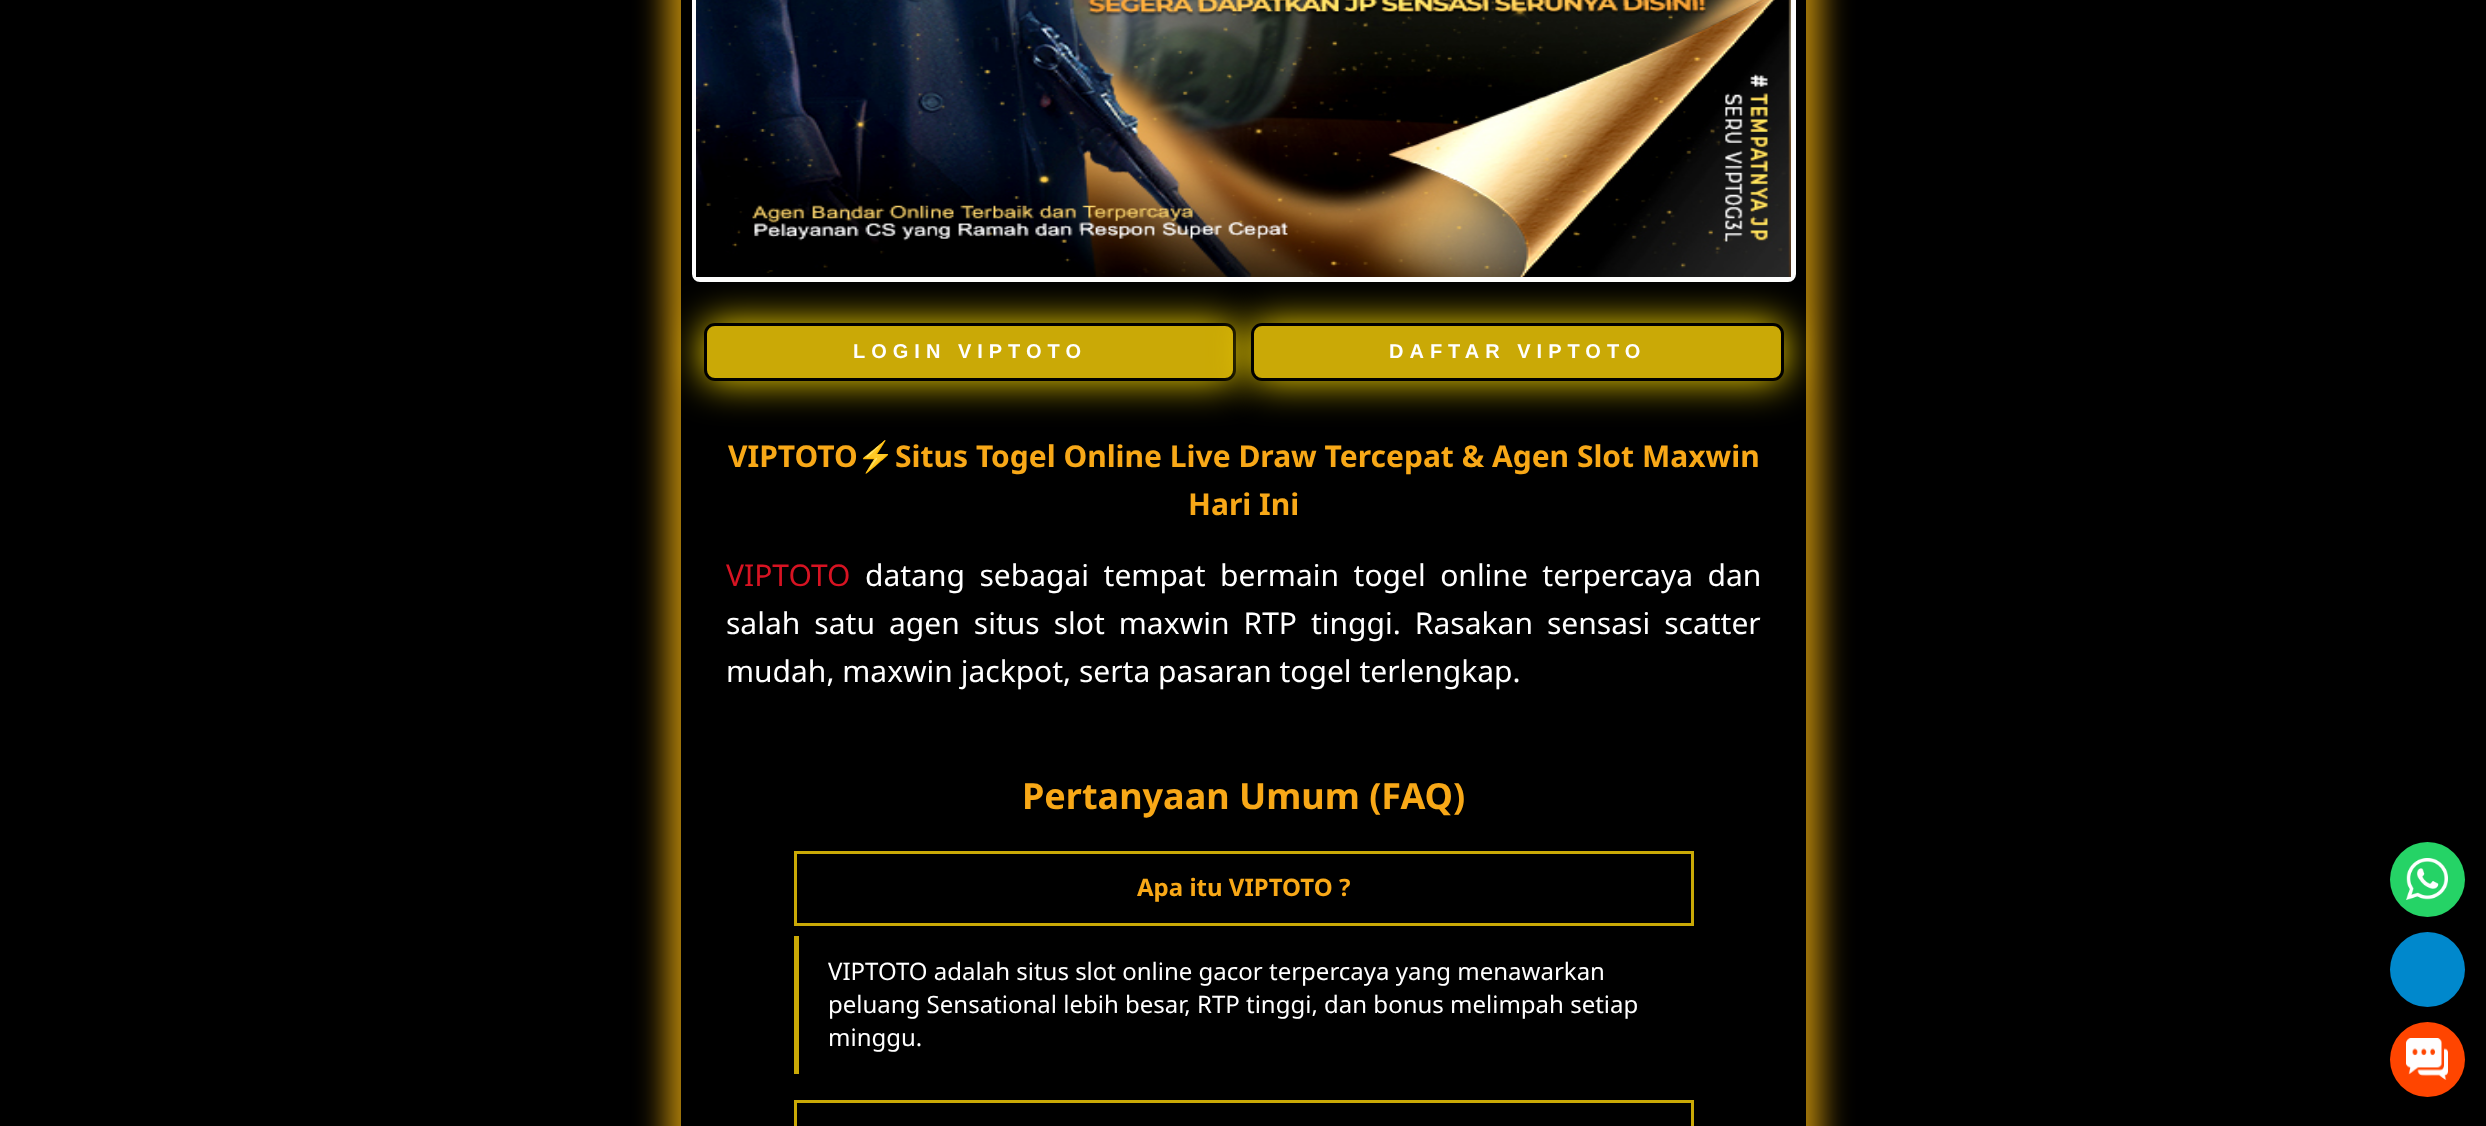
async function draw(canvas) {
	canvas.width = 2486;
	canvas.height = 1126;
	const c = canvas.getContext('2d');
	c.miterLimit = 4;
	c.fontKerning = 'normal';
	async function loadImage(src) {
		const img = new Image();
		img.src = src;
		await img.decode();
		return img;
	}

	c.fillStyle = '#000';
	c.fillRect(0, 0, 2486, 1126);
	c.save();
	c.beginPath();
	c.moveTo(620, 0);
	c.lineTo(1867, 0);
	c.lineTo(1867, 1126);
	c.lineTo(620, 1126);
	c.closePath();
	c.moveTo(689, -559);
	c.lineTo(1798, -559);
	c.bezierCurveTo(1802.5, -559, 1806, -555.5, 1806, -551);
	c.lineTo(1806, 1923);
	c.bezierCurveTo(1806, 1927.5, 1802.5, 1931, 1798, 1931);
	c.lineTo(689, 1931);
	c.bezierCurveTo(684.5, 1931, 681, 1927.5, 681, 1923);
	c.lineTo(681, -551);
	c.bezierCurveTo(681, -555.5, 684.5, -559, 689, -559);
	c.closePath();
	c.clip('evenodd');
	c.fillStyle = '#b8860b';
	c.filter = 'blur(15px)';
	c.beginPath();
	c.roundRect(666, -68, 1155, 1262, 23);
	c.fill();
	c.filter = 'none';
	c.restore();
	c.beginPath();
	c.roundRect(694.5, -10.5, 1099, 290, 5.5);
	c.strokeStyle = '#fdfdfd';
	c.lineWidth = 5;
	c.stroke();
	c.drawImage(await loadImage('img1.png'), 696, 0, 1095, 277);
	c.fillStyle = '#fd0';
	c.filter = 'blur(19px)';
	c.beginPath();
	c.roundRect(704, 323, 532, 58, 11);
	c.fill();
	c.filter = 'none';
	c.fillStyle = '#caa906';
	c.beginPath();
	c.roundRect(705.5, 324.5, 529, 55, 9.5);
	c.fill();
	c.strokeStyle = '#000';
	c.lineWidth = 3;
	c.stroke();
	c.letterSpacing = '6px';
	c.font = 'bold 20px Liberation Sans';
	c.fillStyle = '#fff';
	c.fillText('LOGIN VIPTOTO', 853, 358);
	c.fillStyle = '#fd0';
	c.filter = 'blur(19px)';
	c.beginPath();
	c.roundRect(1251, 323, 533, 58, 11);
	c.fill();
	c.filter = 'none';
	c.fillStyle = '#caa906';
	c.beginPath();
	c.roundRect(1252.5, 324.5, 530, 55, 9.5);
	c.fill();
	c.stroke();
	c.fillStyle = '#fff';
	c.fillText('DAFTAR VIPTOTO', 1389, 358);
	c.letterSpacing = '0px';
	c.font = 'bold 30px Noto Sans';
	c.fillStyle = '#f8a817';
	c.fillText('VIPTOTO', 728, 467);
	c.font = 'bold 30px Noto Color Emoji';
	c.fillText('⚡️', 857, 467);
	c.font = 'bold 30px Noto Sans';
	c.fillText('Situs Togel Online Live Draw Tercepat & Agen Slot Maxwin', 895, 467);
	c.fillText('Hari Ini', 1188, 515);
	c.font = '30px Noto Sans';
	c.fillStyle = '#d71322';
	c.fillText('VIPTOTO', 726, 586);
	c.wordSpacing = '6.75px';
	c.fillStyle = '#fff';
	c.fillText('datang sebagai tempat bermain togel online terpercaya dan', 865, 586);
	c.wordSpacing = '6.25px';
	c.fillText('salah satu agen situs slot maxwin RTP tinggi. Rasakan sensasi scatter', 726, 634);
	c.wordSpacing = '0px';
	c.fillText('mudah, maxwin jackpot, serta pasaran togel terlengkap.', 726, 682);
	c.font = 'bold 36px Noto Sans';
	c.fillStyle = '#f8a817';
	c.fillText('Pertanyaan Umum (FAQ)', 1022, 809);
	c.strokeStyle = '#caa906';
	c.strokeRect(795.5, 852.5, 897, 72);
	c.font = 'bold 24px Noto Sans';
	c.fillText('Apa itu VIPTOTO ?', 1137, 896);
	c.fillStyle = '#caa906';
	c.fillRect(794, 936, 5, 138);
	c.font = '24px Noto Sans';
	c.fillStyle = '#fff';
	for (const [text, x, y] of [
		['VIPTOTO adalah situs slot online gacor terpercaya yang menawarkan', 828, 980],
		['peluang Sensational lebih besar, RTP tinggi, dan bonus melimpah setiap', 828, 1013],
		['minggu.', 828, 1046],
	]) {
		c.fillText(text, x, y);
	}
	c.strokeRect(795.5, 1101.5, 897, 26);
	c.fillStyle = '#25d366';
	c.beginPath();
	c.arc(2427.5, 879.5, 37.5, 0, 2 * Math.PI);
	c.fill();
	c.drawImage(await loadImage('img2.png'), 2406, 858, 42, 42);
	c.fillStyle = '#08c';
	c.beginPath();
	c.arc(2427.5, 969.5, 37.5, 0, 2 * Math.PI);
	c.fill();
	c.fillStyle = '#ff4500';
	c.beginPath();
	c.arc(2427.5, 1059.5, 37.5, 0, 2 * Math.PI);
	c.fill();
	c.drawImage(await loadImage('img3.png'), 2406, 1038, 42, 42);
}

draw(document.querySelector('canvas'));
